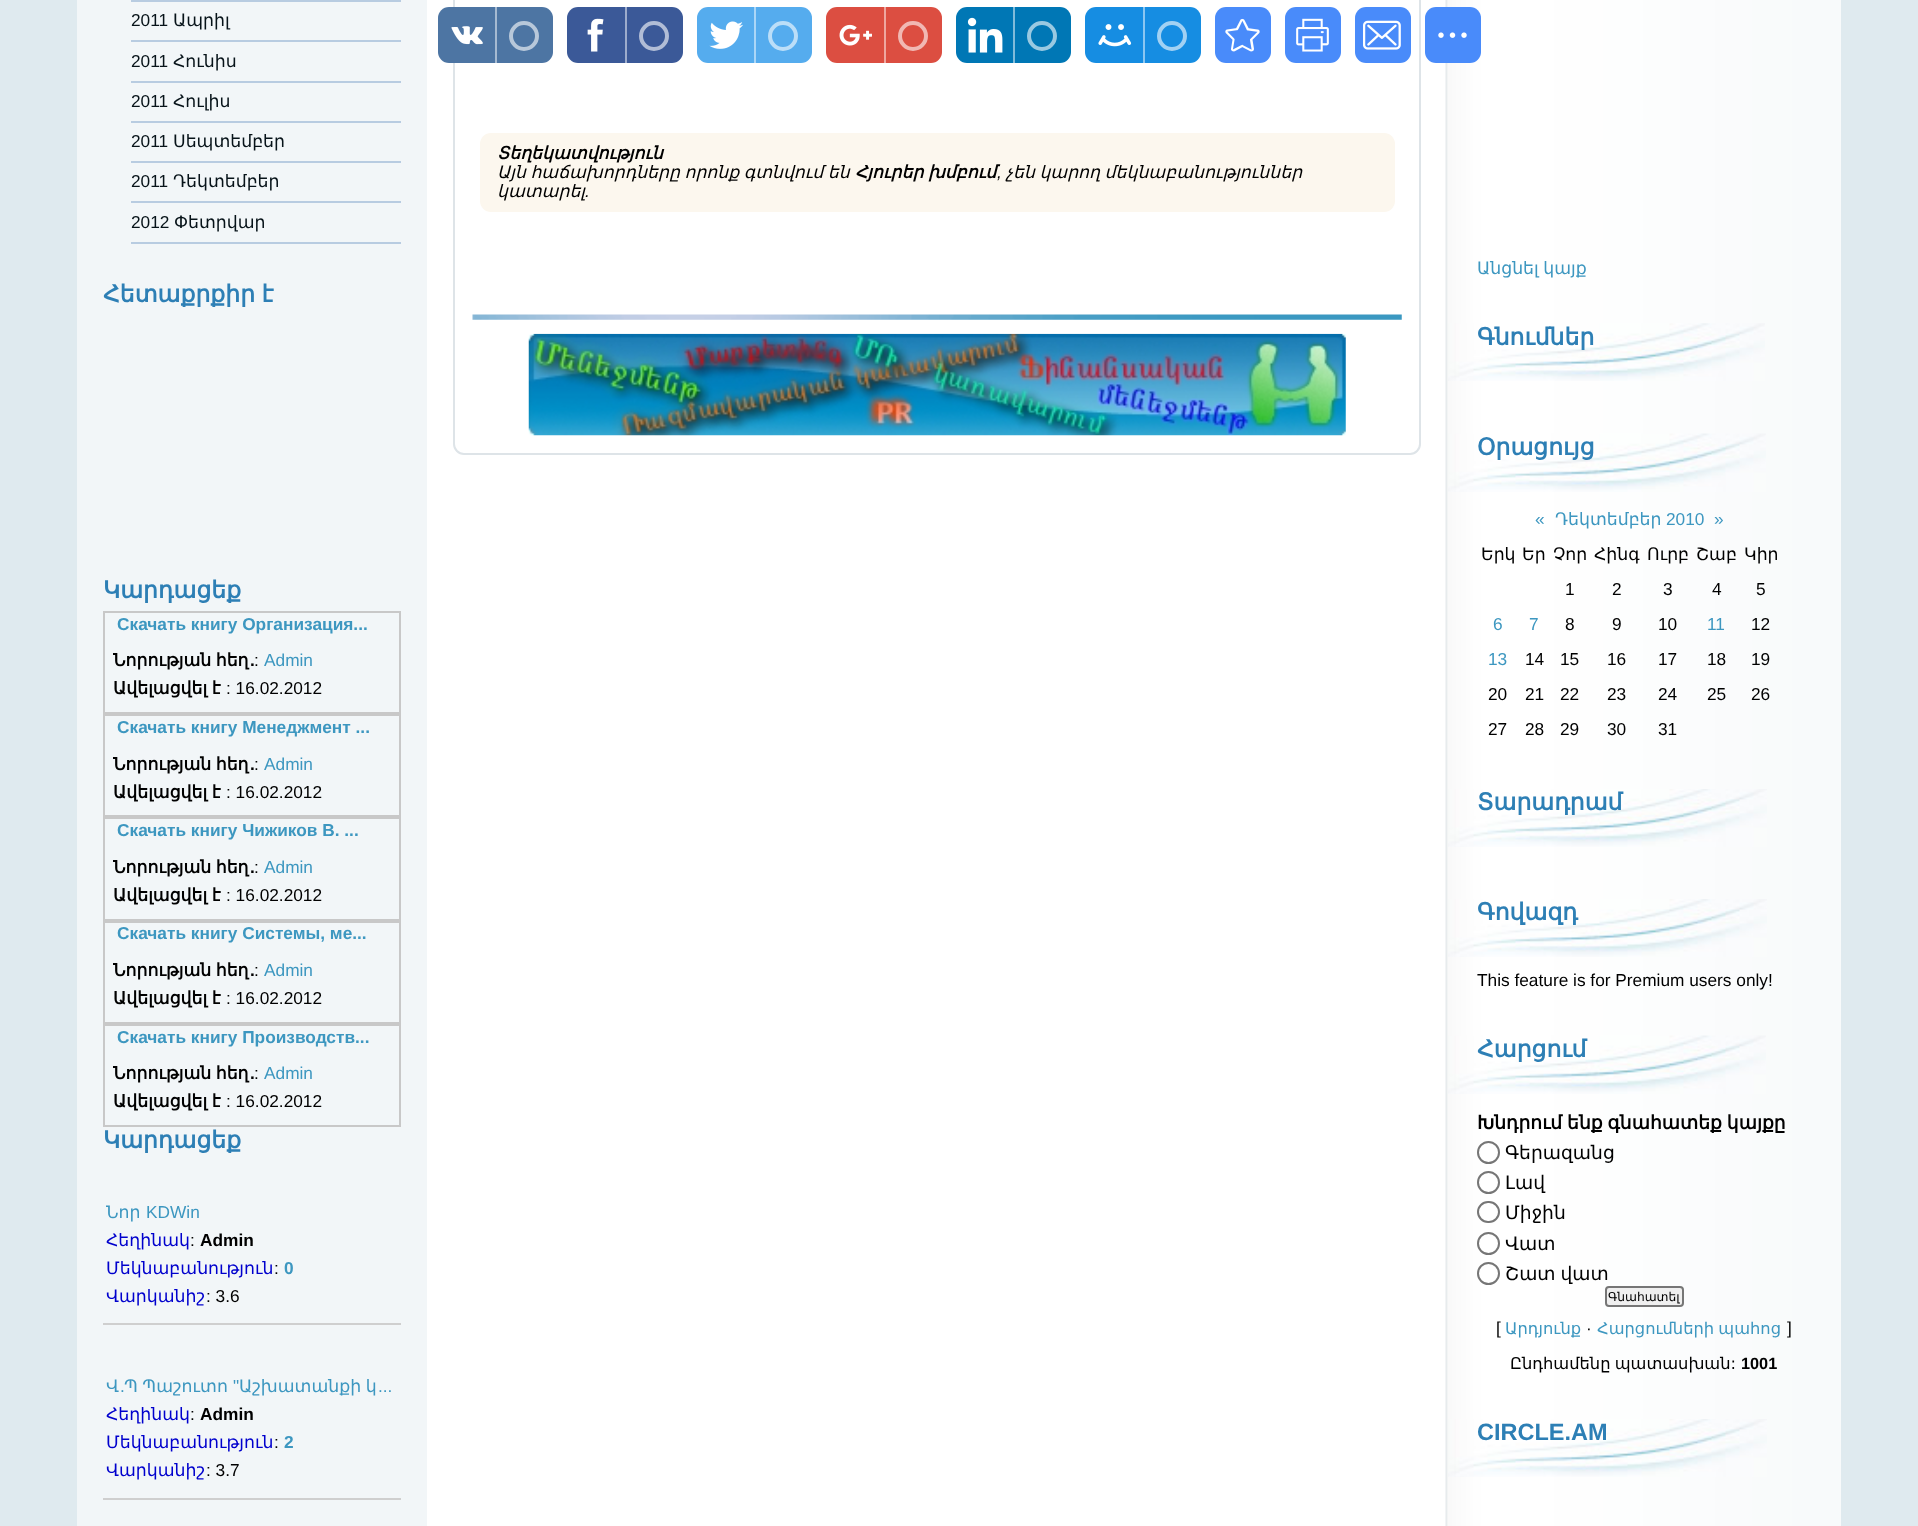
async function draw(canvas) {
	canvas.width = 1918;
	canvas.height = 1526;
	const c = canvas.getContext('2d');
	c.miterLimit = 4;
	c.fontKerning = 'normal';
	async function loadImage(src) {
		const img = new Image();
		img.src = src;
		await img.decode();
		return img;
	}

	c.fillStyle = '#dfeaef';
	c.fillRect(0, 0, 1918, 1526);
	c.fillStyle = '#fff';
	c.fillRect(427, 0, 1019, 1526);
	c.beginPath();
	c.roundRect(454, -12, 966, 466, 10);
	c.strokeStyle = '#dee4e8';
	c.lineWidth = 2;
	c.stroke();
	c.fillStyle = '#4d75a3';
	c.beginPath();
	c.roundRect(438, 7, 115, 56, 11);
	c.fill();
	c.drawImage(await loadImage('img1.png'), 451, 26, 32, 19);
	c.fillStyle = '#a6bad1';
	c.fillRect(495, 7, 2, 56);
	c.beginPath();
	c.arc(524, 36, 13, 0, 2 * Math.PI);
	c.strokeStyle = '#b8c8da';
	c.lineWidth = 4;
	c.stroke();
	c.fillStyle = '#3b5998';
	c.beginPath();
	c.roundRect(567, 7, 116, 56, 11);
	c.fill();
	c.drawImage(await loadImage('img2.png'), 587, 18, 17, 34);
	c.fillStyle = '#9daccc';
	c.fillRect(625, 7, 2, 56);
	c.beginPath();
	c.arc(654, 36, 13, 0, 2 * Math.PI);
	c.strokeStyle = '#b1bdd6';
	c.stroke();
	c.fillStyle = '#55acee';
	c.beginPath();
	c.roundRect(697, 7, 115, 56, 11);
	c.fill();
	c.drawImage(await loadImage('img3.png'), 709, 21, 34, 28);
	c.fillStyle = '#aad6f7';
	c.fillRect(754, 7, 2, 56);
	c.beginPath();
	c.arc(783, 36, 13, 0, 2 * Math.PI);
	c.strokeStyle = '#bbdef8';
	c.stroke();
	c.fillStyle = '#dc4e41';
	c.beginPath();
	c.roundRect(826, 7, 116, 56, 11);
	c.fill();
	c.drawImage(await loadImage('img4.png'), 839, 24, 33, 22);
	c.fillStyle = '#eea7a0';
	c.fillRect(884, 7, 2, 56);
	c.beginPath();
	c.arc(913, 36, 13, 0, 2 * Math.PI);
	c.strokeStyle = '#f1b8b3';
	c.stroke();
	c.fillStyle = '#0077b5';
	c.beginPath();
	c.roundRect(956, 7, 115, 56, 11);
	c.fill();
	c.drawImage(await loadImage('img5.png'), 967, 17, 36, 36);
	c.fillStyle = '#80bbda';
	c.fillRect(1013, 7, 2, 56);
	c.beginPath();
	c.arc(1042, 36, 13, 0, 2 * Math.PI);
	c.strokeStyle = '#99c9e1';
	c.stroke();
	c.fillStyle = '#168de2';
	c.beginPath();
	c.roundRect(1085, 7, 116, 56, 11);
	c.fill();
	c.drawImage(await loadImage('img6.png'), 1098, 24, 34, 23);
	c.fillStyle = '#8bc6f1';
	c.fillRect(1143, 7, 2, 56);
	c.beginPath();
	c.arc(1172, 36, 13, 0, 2 * Math.PI);
	c.strokeStyle = '#a2d1f3';
	c.stroke();
	c.fillStyle = '#498bfa';
	c.beginPath();
	c.roundRect(1215, 7, 56, 56, 11);
	c.fill();
	c.drawImage(await loadImage('img7.png'), 1225, 18, 35, 34);
	c.beginPath();
	c.roundRect(1285, 7, 56, 56, 11);
	c.fill();
	c.drawImage(await loadImage('img8.png'), 1296, 18, 33, 34);
	c.beginPath();
	c.roundRect(1355, 7, 56, 56, 11);
	c.fill();
	c.drawImage(await loadImage('img9.png'), 1363, 20, 38, 30);
	c.drawImage(await loadImage('img11.png'), 1445, 0, 396, 1526);
	c.beginPath();
	c.roundRect(1425, 7, 56, 56, 11);
	c.fill();
	c.drawImage(await loadImage('img10.png'), 1438, 32, 29, 6);
	for (const [x, y, w, h, color] of [
		[77, 0, 350, 1526, '#f2f6f8'],
		[131, 0, 270, 2, '#b8cce1'],
		[131, 40, 270, 2, '#b8cce1'],
	]) {
		c.fillStyle = color;
		c.fillRect(x, y, w, h);
	}
	c.font = '17.3px Liberation Sans';
	c.fillStyle = '#071319';
	c.fillText('2011', 131, 26);
	c.font = '17.3px DejaVu Sans';
	c.fillText('Ապրիլ', 173, 26);
	c.fillStyle = '#b8cce1';
	c.fillRect(131, 81, 270, 2);
	c.font = '17.3px Liberation Sans';
	c.fillStyle = '#071319';
	c.fillText('2011', 131, 67);
	c.font = '17.3px DejaVu Sans';
	c.fillText('Հունիս', 173, 67);
	c.fillStyle = '#b8cce1';
	c.fillRect(131, 121, 270, 2);
	c.font = '17.3px Liberation Sans';
	c.fillStyle = '#071319';
	c.fillText('2011', 131, 107);
	c.font = '17.3px DejaVu Sans';
	c.fillText('Հուլիս', 173, 107);
	c.fillStyle = '#b8cce1';
	c.fillRect(131, 161, 270, 2);
	c.font = '17.3px Liberation Sans';
	c.fillStyle = '#071319';
	c.fillText('2011', 131, 147);
	c.font = '17.3px DejaVu Sans';
	c.fillText('Սեպտեմբեր', 173, 147);
	c.fillStyle = '#b8cce1';
	c.fillRect(131, 201, 270, 2);
	c.font = '17.3px Liberation Sans';
	c.fillStyle = '#071319';
	c.fillText('2011', 131, 187);
	c.font = '17.3px DejaVu Sans';
	c.fillText('Դեկտեմբեր', 173, 187);
	c.fillStyle = '#b8cce1';
	c.fillRect(131, 242, 270, 2);
	c.font = '17.3px Liberation Sans';
	c.fillStyle = '#071319';
	c.fillText('2012', 131, 228);
	c.font = '17.3px DejaVu Sans';
	c.fillText('Փետրվար', 174, 228);
	c.wordSpacing = '-1px';
	c.font = 'bold 23.5px DejaVu Sans';
	c.fillStyle = '#2d7fb5';
	c.fillText('Հետաքրքիր է', 103, 302);
	c.wordSpacing = '0px';
	c.fillText('Կարդացեք', 103, 598);
	c.strokeStyle = '#c8c8c8';
	c.lineWidth = 2;
	c.strokeRect(104, 612, 296, 101);
	c.font = 'bold 17.3px Liberation Sans';
	c.fillStyle = '#3d97c0';
	c.fillText('Скачать книгу Организация...', 117, 630);
	c.wordSpacing = '-1px';
	c.font = 'bold 17.3px DejaVu Sans';
	c.fillStyle = '#000';
	c.fillText('Նորության հեղ', 113, 666);
	c.wordSpacing = '0px';
	c.font = 'bold 17.3px Liberation Sans';
	c.fillText('.', 250, 666);
	c.font = '17.3px Liberation Sans';
	c.fillText(':', 254, 666);
	c.fillStyle = '#3d97c0';
	c.fillText('Admin', 264, 666);
	c.wordSpacing = '-1px';
	c.font = 'bold 17.3px DejaVu Sans';
	c.fillStyle = '#000';
	c.fillText('Ավելացվել է', 113, 694);
	c.wordSpacing = '0px';
	c.font = '17.3px Liberation Sans';
	c.fillText(': 16.02.2012', 226, 694);
	c.strokeRect(104, 715, 296, 101);
	c.font = 'bold 17.3px Liberation Sans';
	c.fillStyle = '#3d97c0';
	c.fillText('Скачать книгу Менеджмент ...', 117, 733);
	c.wordSpacing = '-1px';
	c.font = 'bold 17.3px DejaVu Sans';
	c.fillStyle = '#000';
	c.fillText('Նորության հեղ', 113, 770);
	c.wordSpacing = '0px';
	c.font = 'bold 17.3px Liberation Sans';
	c.fillText('.', 250, 770);
	c.font = '17.3px Liberation Sans';
	c.fillText(':', 254, 770);
	c.fillStyle = '#3d97c0';
	c.fillText('Admin', 264, 770);
	c.wordSpacing = '-1px';
	c.font = 'bold 17.3px DejaVu Sans';
	c.fillStyle = '#000';
	c.fillText('Ավելացվել է', 113, 798);
	c.wordSpacing = '0px';
	c.font = '17.3px Liberation Sans';
	c.fillText(': 16.02.2012', 226, 798);
	c.strokeRect(104, 818, 296, 102);
	c.font = 'bold 17.3px Liberation Sans';
	c.fillStyle = '#3d97c0';
	c.fillText('Скачать книгу Чижиков В. ...', 117, 836);
	c.wordSpacing = '-1px';
	c.font = 'bold 17.3px DejaVu Sans';
	c.fillStyle = '#000';
	c.fillText('Նորության հեղ', 113, 873);
	c.wordSpacing = '0px';
	c.font = 'bold 17.3px Liberation Sans';
	c.fillText('.', 250, 873);
	c.font = '17.3px Liberation Sans';
	c.fillText(':', 254, 873);
	c.fillStyle = '#3d97c0';
	c.fillText('Admin', 264, 873);
	c.wordSpacing = '-1px';
	c.font = 'bold 17.3px DejaVu Sans';
	c.fillStyle = '#000';
	c.fillText('Ավելացվել է', 113, 901);
	c.wordSpacing = '0px';
	c.font = '17.3px Liberation Sans';
	c.fillText(': 16.02.2012', 226, 901);
	c.strokeRect(104, 922, 296, 101);
	c.font = 'bold 17.3px Liberation Sans';
	c.fillStyle = '#3d97c0';
	c.fillText('Скачать книгу Системы, ме...', 117, 939);
	c.wordSpacing = '-1px';
	c.font = 'bold 17.3px DejaVu Sans';
	c.fillStyle = '#000';
	c.fillText('Նորության հեղ', 113, 976);
	c.wordSpacing = '0px';
	c.font = 'bold 17.3px Liberation Sans';
	c.fillText('.', 250, 976);
	c.font = '17.3px Liberation Sans';
	c.fillText(':', 254, 976);
	c.fillStyle = '#3d97c0';
	c.fillText('Admin', 264, 976);
	c.wordSpacing = '-1px';
	c.font = 'bold 17.3px DejaVu Sans';
	c.fillStyle = '#000';
	c.fillText('Ավելացվել է', 113, 1004);
	c.wordSpacing = '0px';
	c.font = '17.3px Liberation Sans';
	c.fillText(': 16.02.2012', 226, 1004);
	c.strokeRect(104, 1025, 296, 101);
	c.font = 'bold 17.3px Liberation Sans';
	c.fillStyle = '#3d97c0';
	c.fillText('Скачать книгу Производств...', 117, 1043);
	c.wordSpacing = '-1px';
	c.font = 'bold 17.3px DejaVu Sans';
	c.fillStyle = '#000';
	c.fillText('Նորության հեղ', 113, 1079);
	c.wordSpacing = '0px';
	c.font = 'bold 17.3px Liberation Sans';
	c.fillText('.', 250, 1079);
	c.font = '17.3px Liberation Sans';
	c.fillText(':', 254, 1079);
	c.fillStyle = '#3d97c0';
	c.fillText('Admin', 264, 1079);
	c.wordSpacing = '-1px';
	c.font = 'bold 17.3px DejaVu Sans';
	c.fillStyle = '#000';
	c.fillText('Ավելացվել է', 113, 1107);
	c.wordSpacing = '0px';
	c.font = '17.3px Liberation Sans';
	c.fillText(': 16.02.2012', 226, 1107);
	c.font = 'bold 23.5px DejaVu Sans';
	c.fillStyle = '#2d7fb5';
	c.fillText('Կարդացեք', 103, 1148);
	c.font = '17.3px DejaVu Sans';
	c.fillStyle = '#3d97c0';
	c.fillText('Նոր', 106, 1218);
	c.font = '17.3px Liberation Sans';
	c.fillText('KDWin', 146, 1218);
	c.font = '17.3px DejaVu Sans';
	c.fillStyle = '#0000cd';
	c.fillText('Հեղինակ', 106, 1246);
	c.font = '17.3px Liberation Sans';
	c.fillStyle = '#000';
	c.fillText(':', 190, 1246);
	c.font = 'bold 17.3px Liberation Sans';
	c.fillText('Admin', 200, 1246);
	c.font = '17.3px DejaVu Sans';
	c.fillStyle = '#0000cd';
	c.fillText('Մեկնաբանություն', 106, 1274);
	c.font = '17.3px Liberation Sans';
	c.fillStyle = '#000';
	c.fillText(':', 274, 1274);
	c.font = 'bold 17.3px Liberation Sans';
	c.fillStyle = '#3d97c0';
	c.fillText('0', 284, 1274);
	c.font = '17.3px DejaVu Sans';
	c.fillStyle = '#0000cd';
	c.fillText('Վարկանիշ', 106, 1302);
	c.font = '17.3px Liberation Sans';
	c.fillStyle = '#000';
	c.fillText(': 3.6', 206, 1302);
	c.fillStyle = '#cfcfcf';
	c.fillRect(103, 1323, 298, 2);
	c.font = '17.3px DejaVu Sans';
	c.fillStyle = '#3d97c0';
	c.fillText('Վ', 106, 1392);
	c.wordSpacing = '-1px';
	c.fillText('Պ Պաշուտո', 124, 1392);
	c.wordSpacing = '0px';
	c.font = '17.3px Liberation Sans';
	c.fillText('"', 233, 1392);
	c.wordSpacing = '-1px';
	c.font = '17.3px DejaVu Sans';
	c.fillText('Աշխատանքի կ', 239, 1392);
	c.wordSpacing = '0px';
	c.font = '17.3px Liberation Sans';
	c.fillText('.', 120, 1392);
	c.fillText('...', 378, 1392);
	c.font = '17.3px DejaVu Sans';
	c.fillStyle = '#0000cd';
	c.fillText('Հեղինակ', 106, 1420);
	c.font = '17.3px Liberation Sans';
	c.fillStyle = '#000';
	c.fillText(':', 190, 1420);
	c.font = 'bold 17.3px Liberation Sans';
	c.fillText('Admin', 200, 1420);
	c.font = '17.3px DejaVu Sans';
	c.fillStyle = '#0000cd';
	c.fillText('Մեկնաբանություն', 106, 1448);
	c.font = '17.3px Liberation Sans';
	c.fillStyle = '#000';
	c.fillText(':', 274, 1448);
	c.font = 'bold 17.3px Liberation Sans';
	c.fillStyle = '#3d97c0';
	c.fillText('2', 284, 1448);
	c.font = '17.3px DejaVu Sans';
	c.fillStyle = '#0000cd';
	c.fillText('Վարկանիշ', 106, 1476);
	c.font = '17.3px Liberation Sans';
	c.fillStyle = '#000';
	c.fillText(': 3.7', 206, 1476);
	c.fillStyle = '#cfcfcf';
	c.fillRect(103, 1498, 298, 2);
	c.fillStyle = '#fcf7ee';
	c.beginPath();
	c.roundRect(480, 133, 915, 79, 11);
	c.fill();
	c.font = 'italic bold 17.3px DejaVu Sans';
	c.fillStyle = '#000';
	c.fillText('Տեղեկատվություն', 497, 159);
	c.wordSpacing = '-1px';
	c.font = 'italic 17.3px DejaVu Sans';
	c.fillText('Այն հաճախորդները որոնք գտնվում են', 497, 178);
	c.font = 'italic bold 17.3px DejaVu Sans';
	c.fillText('Հյուրեր խմբում', 855, 178);
	c.font = 'italic 17.3px DejaVu Sans';
	c.fillText('չեն կարող մեկնաբանություններ', 1006, 178);
	c.wordSpacing = '0px';
	c.font = 'italic 17.3px Liberation Sans';
	c.fillText(',', 997, 178);
	c.font = 'italic 17.3px DejaVu Sans';
	c.fillText('կատարել', 497, 197);
	c.font = 'italic 17.3px Liberation Sans';
	c.fillText('.', 585, 197);
	c.drawImage(await loadImage('img12.png'), 472, 314, 930, 6);
	c.drawImage(await loadImage('img13.png'), 528, 333, 818, 103);
	c.wordSpacing = '-1px';
	c.font = '17.3px DejaVu Sans';
	c.fillStyle = '#3d97c0';
	c.fillText('Անցնել կայք', 1477, 274);
	c.drawImage(await loadImage('img14.png'), 1448, 323, 317, 58);
	c.wordSpacing = '0px';
	c.font = 'bold 23.5px DejaVu Sans';
	c.fillStyle = '#2d7fb5';
	c.fillText('Գնումներ', 1477, 345);
	c.drawImage(await loadImage('img15.png'), 1448, 433, 318, 59);
	c.fillText('Օրացույց', 1477, 455);
	c.font = '17.3px Liberation Sans';
	c.fillStyle = '#3d97c0';
	c.fillText('«', 1535, 525);
	c.font = '17.3px DejaVu Sans';
	c.fillText('Դեկտեմբեր', 1555, 525);
	c.font = '17.3px Liberation Sans';
	c.fillText('2010', 1666, 525);
	c.fillText('»', 1714, 525);
	c.font = '17.3px DejaVu Sans';
	c.fillStyle = '#000';
	for (const [text, x, y] of [
		['Երկ', 1481, 560],
		['Եր', 1522, 560],
		['Չոր', 1553, 560],
		['Հինգ', 1594, 560],
		['Ուրբ', 1647, 560],
		['Շաբ', 1696, 560],
		['Կիր', 1744, 560],
	]) {
		c.fillText(text, x, y);
	}
	c.font = '17.3px Liberation Sans';
	for (const [text, x, y] of [
		['1', 1565, 595],
		['2', 1612, 595],
		['3', 1663, 595],
		['4', 1712, 595],
		['5', 1756, 595],
	]) {
		c.fillText(text, x, y);
	}
	c.fillStyle = '#3d97c0';
	c.fillText('6', 1493, 630);
	c.fillText('7', 1529, 630);
	c.fillStyle = '#000';
	for (const [text, x, y] of [
		['8', 1565, 630],
		['9', 1612, 630],
		['10', 1658, 630],
	]) {
		c.fillText(text, x, y);
	}
	c.fillStyle = '#3d97c0';
	c.fillText('11', 1707, 630);
	c.fillStyle = '#000';
	c.fillText('12', 1751, 630);
	c.fillStyle = '#3d97c0';
	c.fillText('13', 1488, 665);
	c.fillStyle = '#000';
	for (const [text, x, y] of [
		['14', 1525, 665],
		['15', 1560, 665],
		['16', 1607, 665],
		['17', 1658, 665],
		['18', 1707, 665],
		['19', 1751, 665],
		['20', 1488, 700],
		['21', 1525, 700],
		['22', 1560, 700],
		['23', 1607, 700],
		['24', 1658, 700],
		['25', 1707, 700],
		['26', 1751, 700],
		['27', 1488, 735],
		['28', 1525, 735],
		['29', 1560, 735],
		['30', 1607, 735],
		['31', 1658, 735],
	]) {
		c.fillText(text, x, y);
	}
	c.drawImage(await loadImage('img16.png'), 1448, 789, 319, 58);
	c.font = 'bold 23.5px DejaVu Sans';
	c.fillStyle = '#2d7fb5';
	c.fillText('Տարադրամ', 1477, 810);
	c.drawImage(await loadImage('img17.png'), 1448, 899, 319, 58);
	c.fillText('Գովազդ', 1477, 920);
	c.font = '17.3px Liberation Sans';
	c.fillStyle = '#000';
	c.fillText('This feature is for Premium users only!', 1477, 986);
	c.drawImage(await loadImage('img15.png'), 1448, 1035, 318, 59);
	c.font = 'bold 23.5px DejaVu Sans';
	c.fillStyle = '#2d7fb5';
	c.fillText('Հարցում', 1477, 1057);
	c.wordSpacing = '-1px';
	c.font = 'bold 18.7px DejaVu Sans';
	c.fillStyle = '#000';
	c.fillText('Խնդրում ենք գնահատեք կայքը', 1477, 1129);
	c.beginPath();
	c.arc(1488.5, 1152.5, 10.5, 0, 2 * Math.PI);
	c.strokeStyle = '#767676';
	c.stroke();
	c.wordSpacing = '0px';
	c.font = '18.7px DejaVu Sans';
	c.fillText('Գերազանց', 1505, 1159);
	c.beginPath();
	c.arc(1488.5, 1182.5, 10.5, 0, 2 * Math.PI);
	c.stroke();
	c.fillText('Լավ', 1505, 1189);
	c.beginPath();
	c.roundRect(1478, 1202, 21, 20, 10);
	c.stroke();
	c.fillText('Միջին', 1505, 1219);
	c.beginPath();
	c.arc(1488.5, 1243.5, 10.5, 0, 2 * Math.PI);
	c.stroke();
	c.fillText('Վատ', 1505, 1250);
	c.beginPath();
	c.arc(1488.5, 1273.5, 10.5, 0, 2 * Math.PI);
	c.stroke();
	c.wordSpacing = '-1px';
	c.fillText('Շատ վատ', 1505, 1280);
	c.fillStyle = '#efefef';
	c.beginPath();
	c.roundRect(1606, 1287, 77, 19, 3);
	c.fill();
	c.stroke();
	c.wordSpacing = '0px';
	c.font = '12.25px DejaVu Sans';
	c.fillStyle = '#000';
	c.fillText('Գնահատել', 1608, 1301);
	c.font = '17.3px Liberation Sans';
	c.fillText('[', 1496, 1334);
	c.font = '16.3px DejaVu Sans';
	c.fillStyle = '#3d97c0';
	c.fillText('Արդյունք', 1505, 1334);
	c.font = '17.3px Liberation Sans';
	c.fillStyle = '#000';
	c.fillText('·', 1586, 1334);
	c.wordSpacing = '-1px';
	c.font = '16.3px DejaVu Sans';
	c.fillStyle = '#3d97c0';
	c.fillText('Հարցումների պահոց', 1597, 1334);
	c.wordSpacing = '0px';
	c.font = '17.3px Liberation Sans';
	c.fillStyle = '#000';
	c.fillText(']', 1787, 1334);
	c.wordSpacing = '-1px';
	c.font = '16.3px DejaVu Sans';
	c.fillText('Ընդհամենը պատասխան:', 1510, 1369);
	c.wordSpacing = '0px';
	c.font = 'bold 16.3px Liberation Sans';
	c.fillText('1001', 1741, 1369);
	c.drawImage(await loadImage('img16.png'), 1448, 1419, 319, 58);
	c.font = 'bold 23.5px Liberation Sans';
	c.fillStyle = '#2d7fb5';
	c.fillText('CIRCLE.AM', 1477, 1440);
}

draw(document.querySelector('canvas'));
